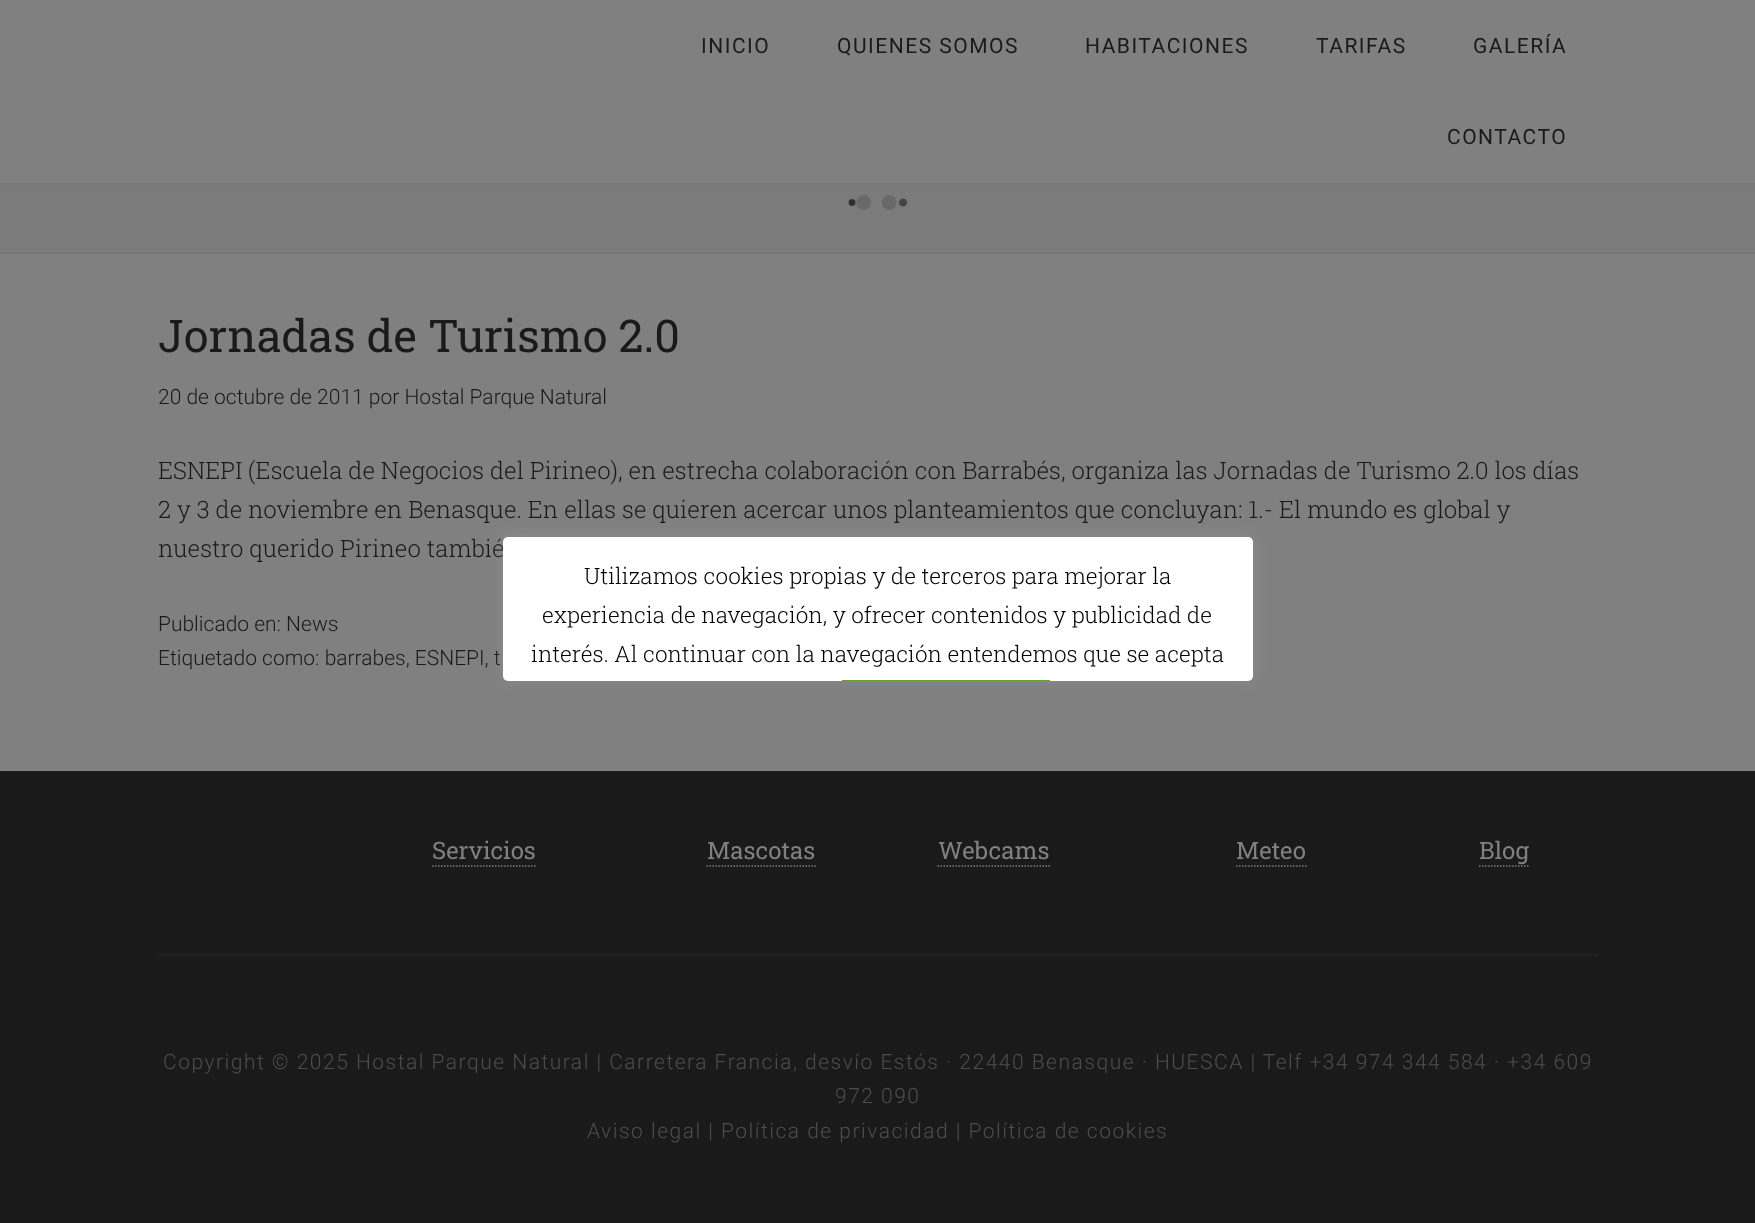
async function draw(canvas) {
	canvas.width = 1755;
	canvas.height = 1223;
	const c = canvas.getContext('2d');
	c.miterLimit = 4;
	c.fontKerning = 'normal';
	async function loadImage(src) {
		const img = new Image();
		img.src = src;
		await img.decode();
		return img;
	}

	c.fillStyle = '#808080';
	c.fillRect(0, 0, 1755, 1223);
	c.fillStyle = '#777';
	c.fillRect(0, 183, 1755, 2);
	c.letterSpacing = '1.5px';
	c.font = '21px Roboto';
	c.fillStyle = '#1a1a1a';
	for (const [text, x, y] of [
		['INICIO', 701, 53],
		['QUIENES SOMOS', 837, 53],
		['HABITACIONES', 1085, 53],
		['TARIFAS', 1316, 53],
		['GALERÍA', 1473, 53],
		['CONTACTO', 1447, 144],
	]) {
		c.fillText(text, x, y);
	}
	c.fillStyle = '#7b7b7b';
	c.fillRect(0, 185, 1755, 67);
	c.fillStyle = '#777';
	c.fillRect(0, 252, 1755, 2);
	c.drawImage(await loadImage('img1.png'), 848, 195, 60, 16);
	c.letterSpacing = '0px';
	c.font = '45px Roboto Slab';
	c.fillStyle = '#1a1a1a';
	c.fillText('Jornadas de Turismo 2.0', 158, 352);
	c.font = '300 21px Roboto';
	c.fillText('20 de octubre de 2011 por Hostal Parque Natural', 158, 404);
	c.font = '300 24px Roboto Slab';
	for (const [text, x, y] of [
		['ESNEPI (Escuela de Negocios del Pirineo), en estrecha colaboración con Barrabés, organiza las Jornadas de Turismo 2.0 los días', 158, 479],
		['2 y 3 de noviembre en Benasque. En ellas se quieren acercar unos planteamientos que concluyan: 1.- El mundo es global y', 158, 518],
		['nuestro querido Pirineo tambié', 158, 557],
	]) {
		c.fillText(text, x, y);
	}
	c.font = '300 21px Roboto';
	c.fillText('Publicado en: News', 158, 631);
	c.fillText('Etiquetado como: barrabes, ESNEPI, t', 158, 665);
	c.fillRect(0, 771, 1755, 452);
	c.fillStyle = '#222';
	c.fillRect(158, 954, 1440, 2);
	c.font = '24px Roboto Slab';
	c.fillStyle = '#808080';
	c.fillText('Servicios', 432, 859);
	c.beginPath();
	c.moveTo(432, 866);
	c.lineTo(535.5, 866);
	c.strokeStyle = '#808080';
	c.lineWidth = 1.5;
	c.setLineDash([1.5, 1.5]);
	c.stroke();
	c.fillText('Mascotas', 707, 859);
	c.beginPath();
	c.moveTo(706.5, 866);
	c.lineTo(816, 866);
	c.stroke();
	c.fillText('Webcams', 938, 859);
	c.beginPath();
	c.moveTo(937.5, 866);
	c.lineTo(1050, 866);
	c.stroke();
	c.fillText('Meteo', 1236, 859);
	c.beginPath();
	c.moveTo(1236, 866);
	c.lineTo(1306.5, 866);
	c.stroke();
	c.fillText('Blog', 1479, 859);
	c.beginPath();
	c.moveTo(1479, 866);
	c.lineTo(1528.5, 866);
	c.stroke();
	c.letterSpacing = '1.5px';
	c.font = '300 21px Roboto';
	c.fillStyle = '#4d4d4d';
	for (const [text, x, y] of [
		['Copyright © 2025 Hostal Parque Natural | Carretera Francia, desvío Estós · 22440 Benasque · HUESCA | Telf +34 974 344 584 · +34 609', 163, 1069],
		['972 090', 835, 1103],
		['Aviso legal | Política de privacidad | Política de cookies', 587, 1138],
	]) {
		c.fillText(text, x, y);
	}
	c.fillStyle = '#acabab4d';
	c.filter = 'blur(7.5px)';
	c.beginPath();
	c.roundRect(503, 536, 750, 144, 5);
	c.fill();
	c.filter = 'none';
	c.fillStyle = '#fff';
	c.beginPath();
	c.roundRect(503, 537, 750, 144, 5);
	c.fill();
	c.letterSpacing = '0px';
	c.font = '300 22.5px Roboto Slab';
	c.fillStyle = '#000';
	for (const [text, x, y] of [
		['Utilizamos cookies propias y de terceros para mejorar la', 584, 584],
		['experiencia de navegación, y ofrecer contenidos y publicidad de', 542, 623],
		['interés. Al continuar con la navegación entendemos que se acepta', 531, 662],
	]) {
		c.fillText(text, x, y);
	}
	c.fillStyle = '#61a229';
	c.fillRect(842, 680, 208, 1);
}

draw(document.querySelector('canvas'));
